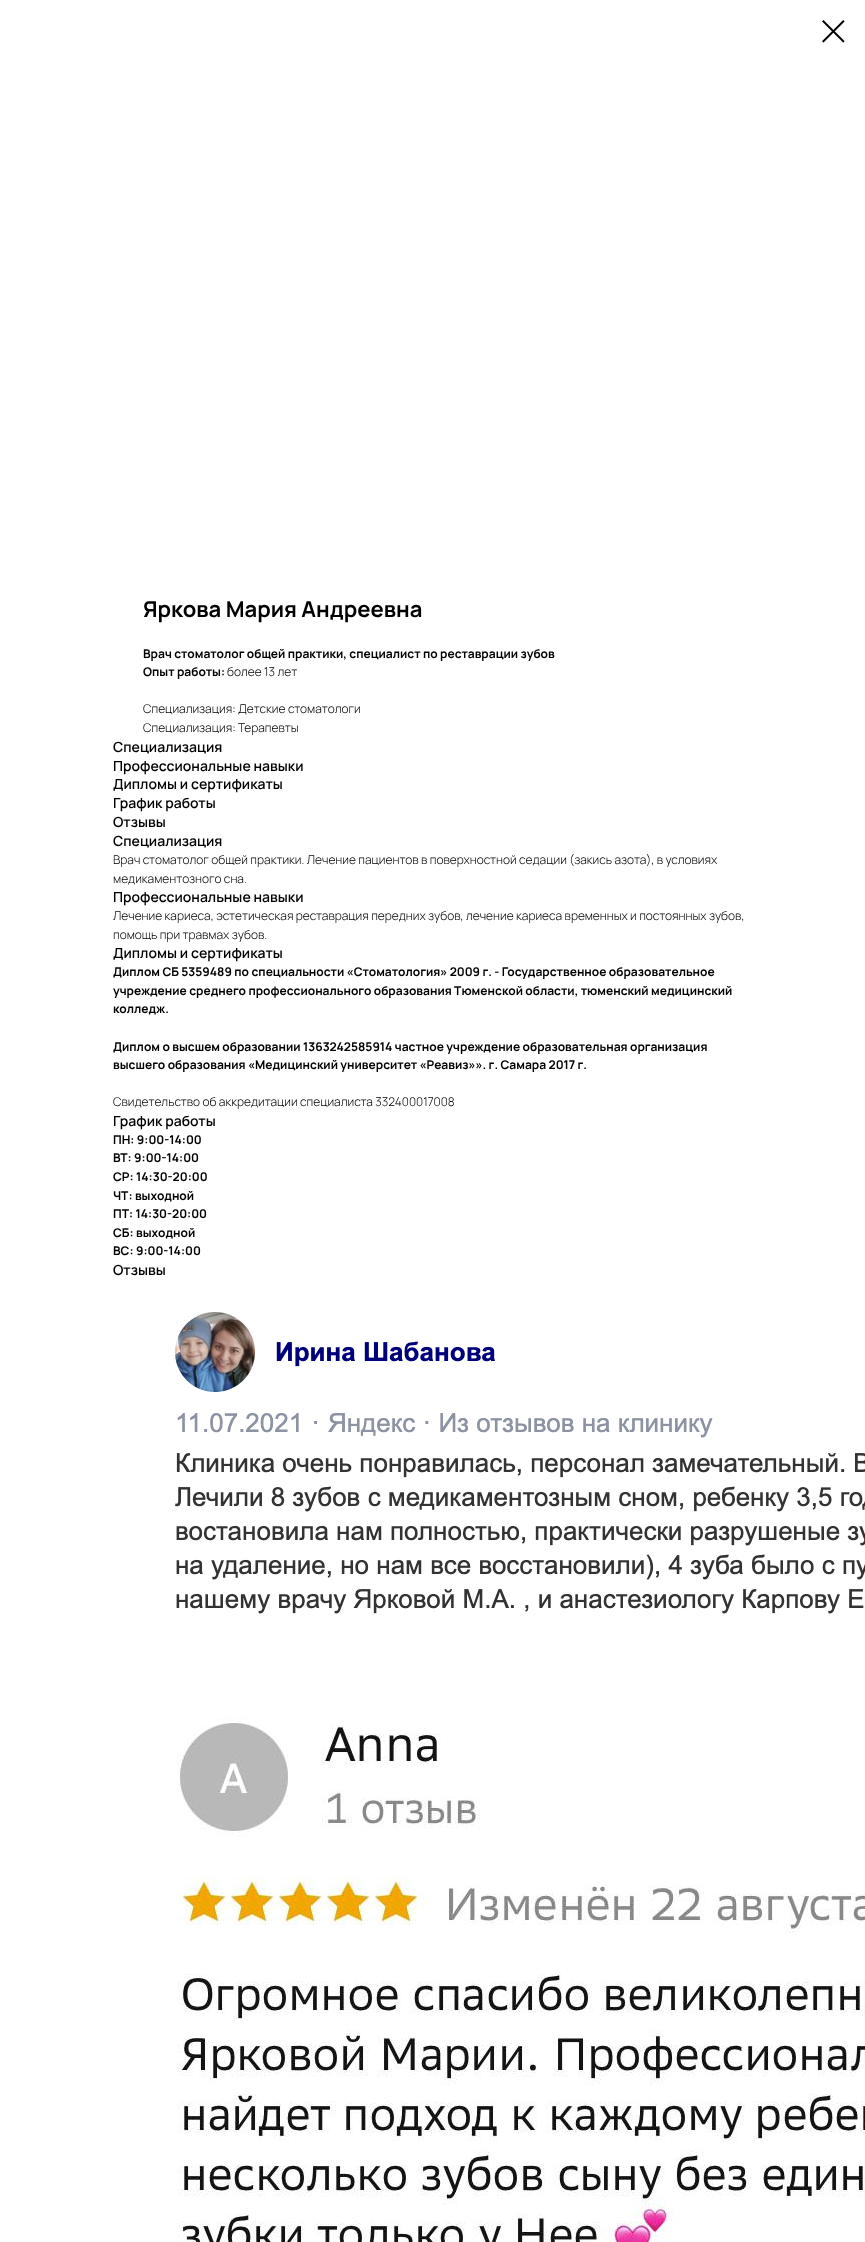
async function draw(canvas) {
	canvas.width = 865;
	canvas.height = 2242;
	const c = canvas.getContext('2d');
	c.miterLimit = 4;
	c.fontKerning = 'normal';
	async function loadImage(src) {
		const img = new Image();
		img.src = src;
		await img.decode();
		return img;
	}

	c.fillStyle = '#fff';
	c.fillRect(0, 0, 865, 2242);
	c.drawImage(await loadImage('img1.png'), 822, 20, 23, 23);
	c.font = 'bold 22px Manrope';
	c.fillStyle = '#000';
	c.fillText('Яркова Мария Андреевна', 143, 617);
	c.font = 'bold 12px Manrope';
	c.fillText('Врач стоматолог общей практики, специалист по реставрации зубов', 143, 658);
	c.fillText('Опыт работы:', 143, 676);
	c.font = '300 12px Manrope';
	for (const [text, x, y] of [
		['более 13 лет', 227, 676],
		['Специализация: Детские стоматологи', 143, 713],
		['Специализация: Терапевты', 143, 732],
	]) {
		c.fillText(text, x, y);
	}
	c.font = '600 14px Manrope';
	for (const [text, x, y] of [
		['Специализация', 113, 752],
		['Профессиональные навыки', 113, 771],
		['Дипломы и сертификаты', 113, 789],
		['График работы', 113, 808],
		['Отзывы', 113, 827],
		['Специализация', 113, 846],
	]) {
		c.fillText(text, x, y);
	}
	c.font = '300 12px Manrope';
	c.fillText('Врач стоматолог общей практики. Лечение пациентов в поверхностной седации (закись азота), в условиях', 113, 864);
	c.fillText('медикаментозного сна.', 113, 883);
	c.font = '600 14px Manrope';
	c.fillText('Профессиональные навыки', 113, 902);
	c.font = '300 12px Manrope';
	c.fillText('Лечение кариеса, эстетическая реставрация передних зубов, лечение кариеса временных и постоянных зубов,', 113, 920);
	c.fillText('помощь при травмах зубов.', 113, 939);
	c.font = '600 14px Manrope';
	c.fillText('Дипломы и сертификаты', 113, 958);
	c.font = 'bold 12px Manrope';
	for (const [text, x, y] of [
		['Диплом СБ 5359489 по специальности «Стоматология» 2009 г. - Государственное образовательное', 113, 976],
		['учреждение среднего профессионального образования Тюменской области, тюменский медицинский', 113, 995],
		['колледж.', 113, 1013],
		['Диплом о высшем образовании 1363242585914 частное учреждение образовательная организация', 113, 1051],
		['высшего образования «Медицинский университет «Реавиз»». г. Самара 2017 г.', 113, 1069],
	]) {
		c.fillText(text, x, y);
	}
	c.font = '300 12px Manrope';
	c.fillText('Свидетельство об аккредитации специалиста 332400017008', 113, 1106);
	c.font = '600 14px Manrope';
	c.fillText('График работы', 113, 1126);
	c.font = 'bold 12px Manrope';
	for (const [text, x, y] of [
		['ПН: 9:00-14:00', 113, 1144],
		['ВТ: 9:00-14:00', 113, 1162],
		['СР: 14:30-20:00', 113, 1181],
		['ЧТ: выходной', 113, 1200],
		['ПТ: 14:30-20:00', 113, 1218],
		['СБ: выходной', 113, 1237],
		['ВС: 9:00-14:00', 113, 1255],
	]) {
		c.fillText(text, x, y);
	}
	c.font = '600 14px Manrope';
	c.fillText('Отзывы', 113, 1275);
	c.drawImage(await loadImage('img2.png'), 175, 1312, 690, 302);
	c.drawImage(await loadImage('img3.png'), 170, 1717, 695, 525);
}

draw(document.querySelector('canvas'));
